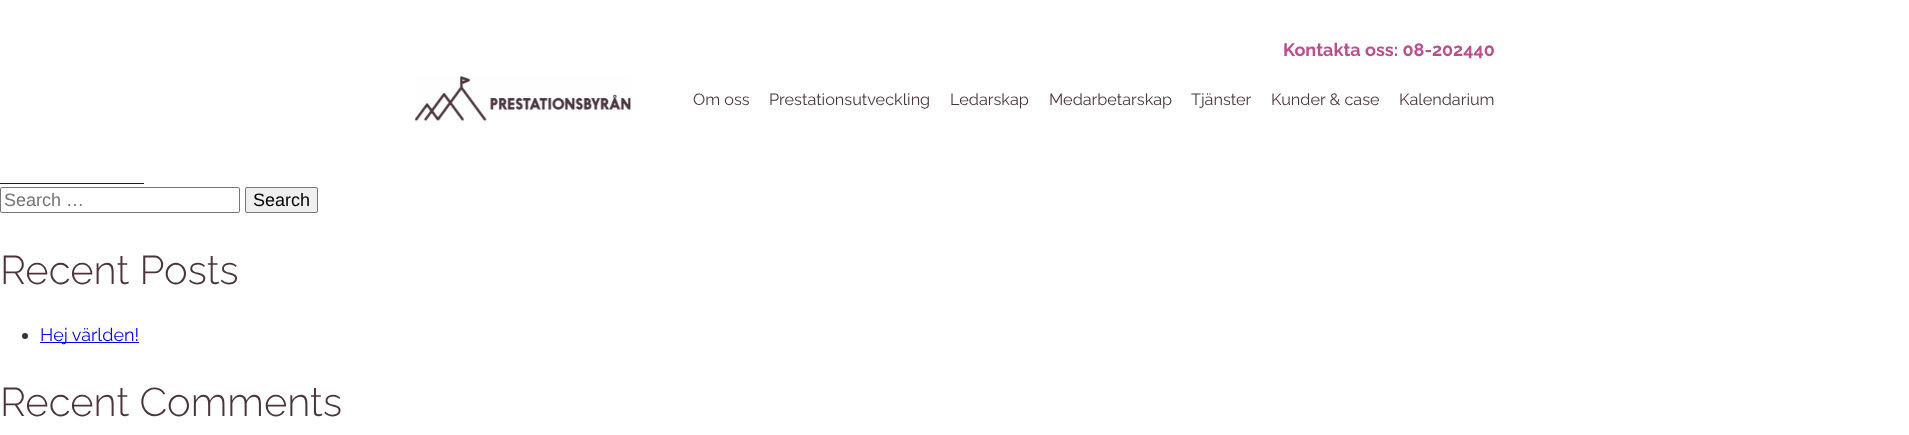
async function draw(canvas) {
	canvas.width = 1909;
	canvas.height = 435;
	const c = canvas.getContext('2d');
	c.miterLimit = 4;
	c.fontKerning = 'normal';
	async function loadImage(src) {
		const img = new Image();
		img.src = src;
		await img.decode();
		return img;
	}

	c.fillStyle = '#fff';
	c.fillRect(0, 0, 1909, 435);
	c.font = 'bold 18px Raleway';
	c.fillStyle = '#ba4e8e';
	c.fillText('Kontakta oss: 08-202440', 1283, 56);
	c.drawImage(await loadImage('img1.png'), 414, 76, 217, 45);
	c.font = '16.25px Raleway';
	c.fillStyle = '#4b343e';
	for (const [text, x, y] of [
		['Om oss', 693, 105],
		['Prestationsutveckling', 769, 105],
		['Ledarskap', 950, 105],
		['Medarbetarskap', 1049, 105],
		['Tjänster', 1191, 105],
		['Kunder & case', 1271, 105],
		['Kalendarium', 1399, 105],
	]) {
		c.fillText(text, x, y);
	}
	c.fillStyle = '#00e';
	c.fillRect(0, 183, 144, 1);
	c.beginPath();
	c.roundRect(0.5, 187.5, 239, 25, 1.5);
	c.strokeStyle = '#767676';
	c.stroke();
	c.font = '18px Liberation Sans';
	c.fillStyle = '#757575';
	c.fillText('Search …', 4, 206);
	c.fillStyle = '#efefef';
	c.beginPath();
	c.roundRect(245.5, 187.5, 72, 25, 1.5);
	c.fill();
	c.stroke();
	c.fillStyle = '#000';
	c.fillText('Search', 253, 206);
	c.font = '300 40px Raleway';
	c.fillStyle = '#4b343e';
	c.fillText('Recent Posts', 0, 284);
	c.fillStyle = '#333';
	c.beginPath();
	c.arc(25, 336, 3, 0, 2 * Math.PI);
	c.fill();
	c.fillStyle = '#00e';
	c.fillRect(40, 342, 99, 1);
	c.font = '18px Raleway';
	c.fillText('Hej världen!', 40, 341);
	c.font = '300 40px Raleway';
	c.fillStyle = '#4b343e';
	c.fillText('Recent Comments', 0, 416);
}

draw(document.querySelector('canvas'));
